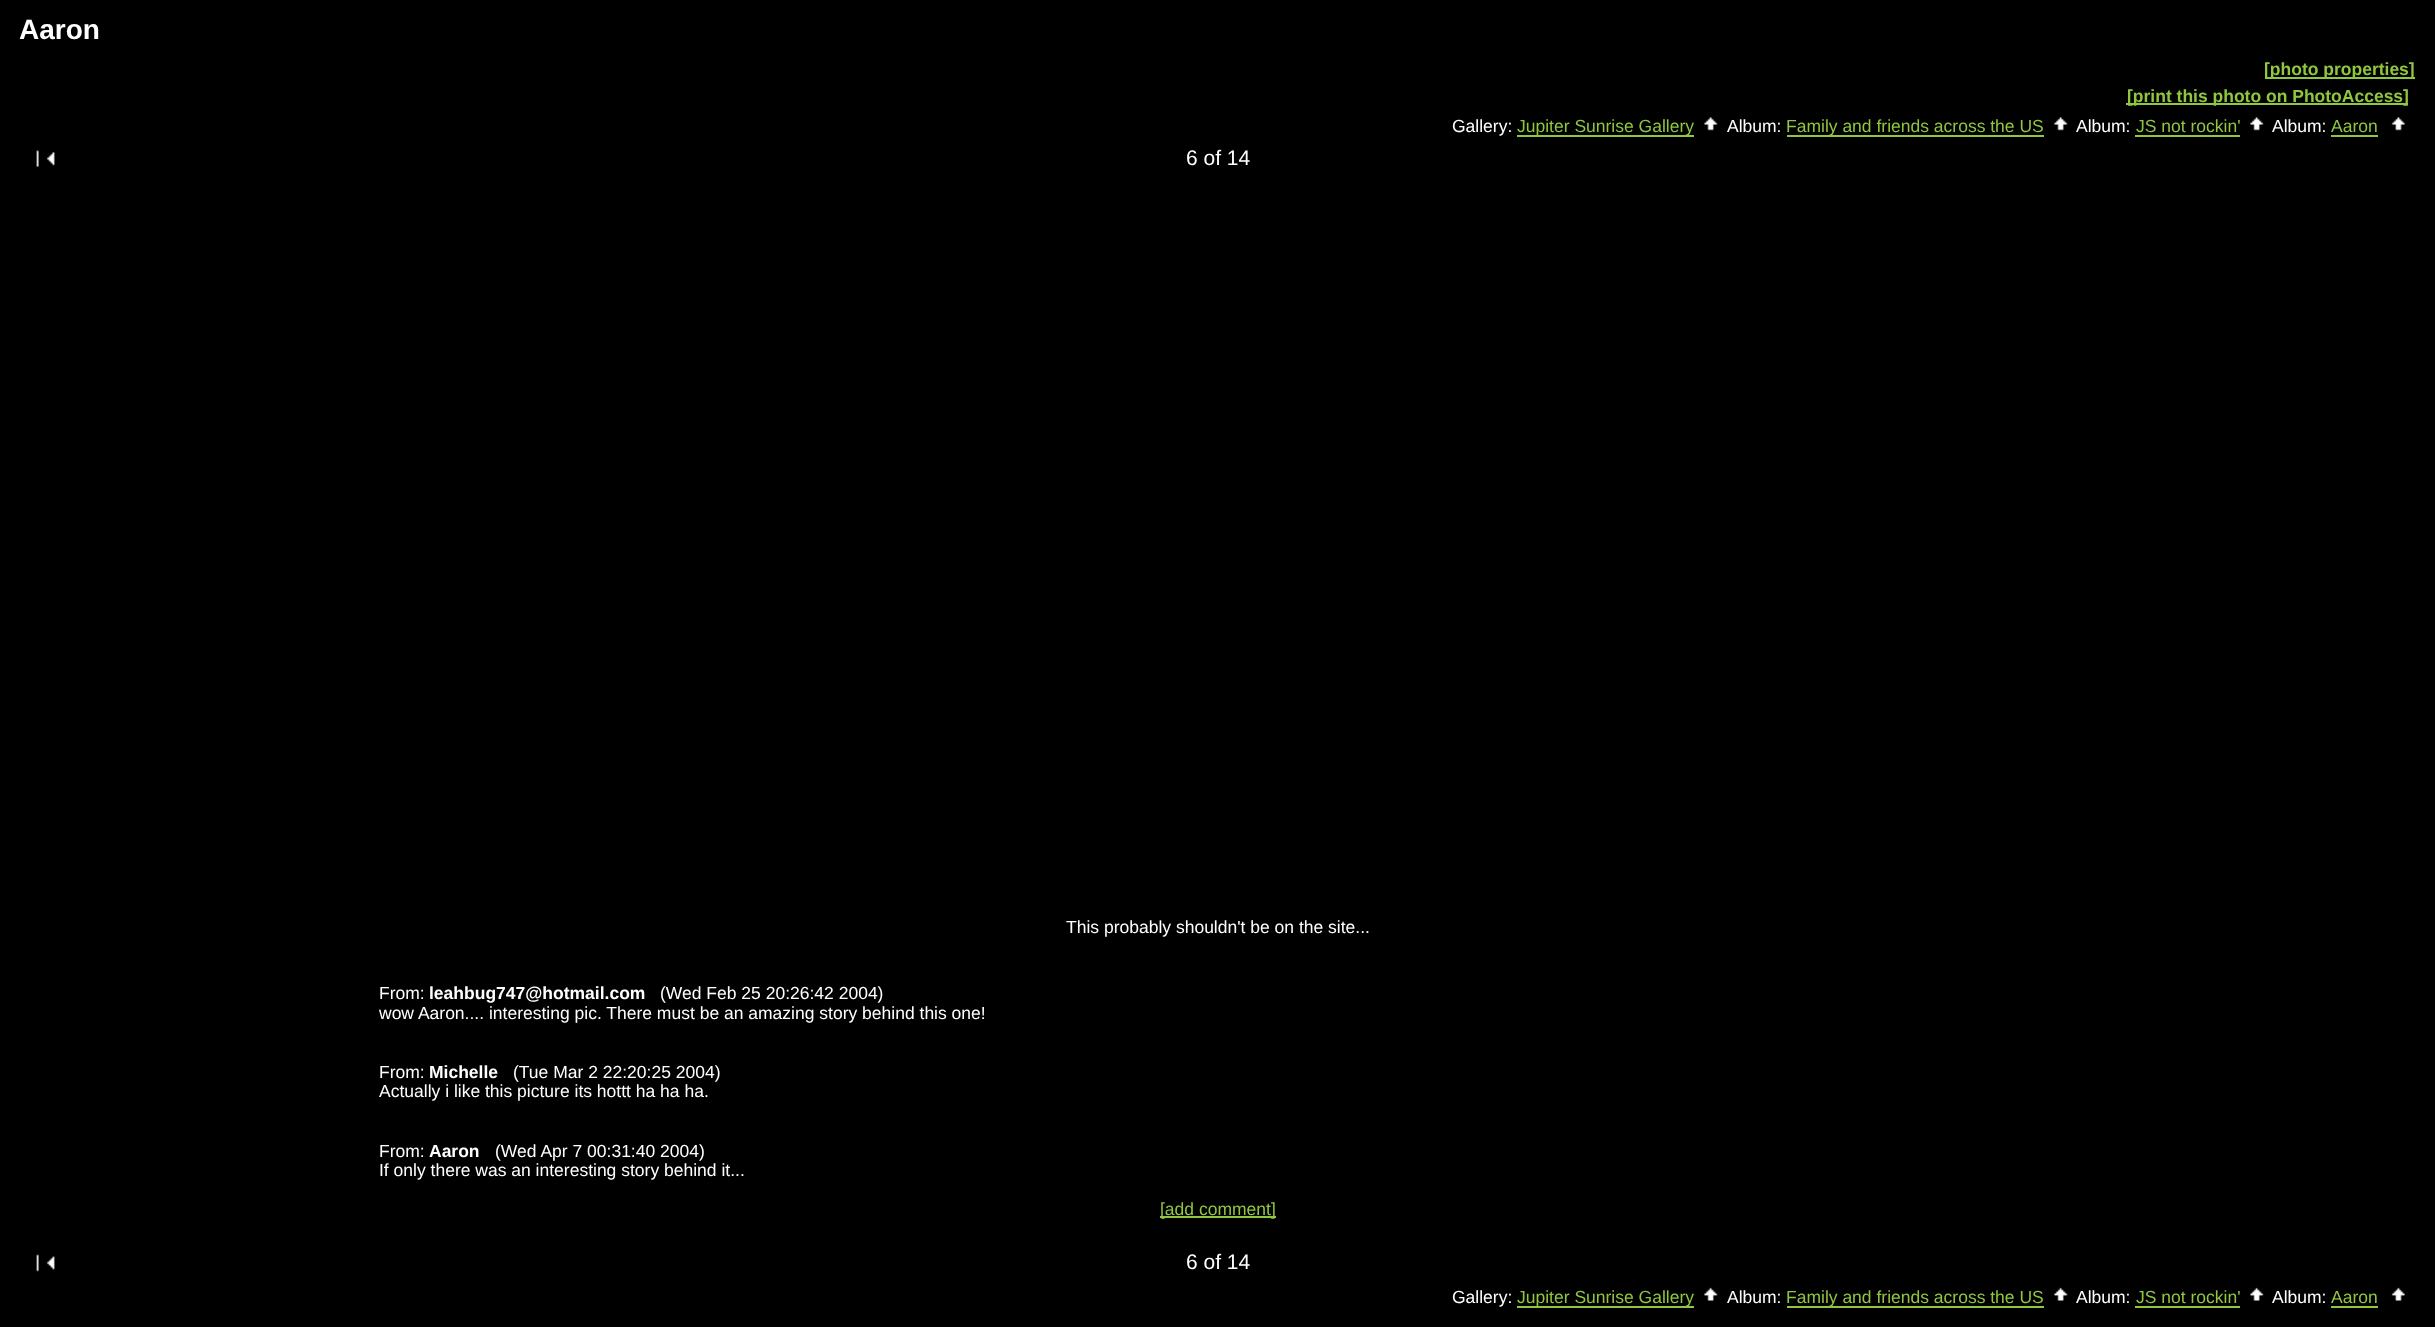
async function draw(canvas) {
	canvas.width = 2435;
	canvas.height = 1327;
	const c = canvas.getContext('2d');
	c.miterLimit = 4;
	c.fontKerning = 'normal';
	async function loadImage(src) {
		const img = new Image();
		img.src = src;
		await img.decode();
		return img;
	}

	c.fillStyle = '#000';
	c.fillRect(0, 0, 2435, 1327);
	c.font = 'bold 28px Liberation Sans';
	c.fillStyle = '#fff';
	c.fillText('Aaron', 19, 39);
	c.fillStyle = '#90c73e';
	c.fillRect(2265, 77, 150, 2);
	c.font = 'bold 17.5px Liberation Sans';
	c.fillText('[photo properties]', 2264, 75);
	c.fillRect(2126, 103, 282, 2);
	c.fillText('[print this photo on PhotoAccess]', 2127, 102);
	c.font = '17.5px Liberation Sans';
	c.fillStyle = '#fff';
	c.fillText('Gallery:', 1452, 132);
	c.fillStyle = '#90c73e';
	c.fillRect(1517, 135, 177, 2);
	c.fillText('Jupiter Sunrise Gallery', 1517, 132);
	c.drawImage(await loadImage('img1.png'), 1704, 117, 14, 14);
	c.fillStyle = '#fff';
	c.fillText('Album:', 1727, 132);
	c.fillStyle = '#90c73e';
	c.fillRect(1787, 135, 257, 2);
	c.fillText('Family and friends across the US', 1786, 132);
	c.drawImage(await loadImage('img1.png'), 2054, 117, 14, 14);
	c.fillStyle = '#fff';
	c.fillText('Album:', 2076, 132);
	c.fillStyle = '#90c73e';
	c.fillText('JS not rockin\'', 2136, 132);
	c.fillRect(2135, 135, 105, 2);
	c.drawImage(await loadImage('img1.png'), 2250, 117, 14, 14);
	c.fillStyle = '#fff';
	c.fillText('Album:', 2272, 132);
	c.fillStyle = '#90c73e';
	c.fillText('Aaron', 2331, 132);
	c.fillRect(2331, 135, 47, 2);
	c.drawImage(await loadImage('img2.png'), 2391, 117, 14, 14);
	c.drawImage(await loadImage('img3.png'), 36, 150, 19, 17);
	c.font = '21px Liberation Sans';
	c.fillStyle = '#fff';
	c.fillText('6 of 14', 1186, 165);
	c.font = '17.5px Liberation Sans';
	c.fillText('This probably shouldn\'t be on the site...', 1066, 933);
	c.fillText('From:', 379, 999);
	c.font = 'bold 17.5px Liberation Sans';
	c.fillText('leahbug747@hotmail.com', 429, 999);
	c.font = '17.5px Liberation Sans';
	for (const [text, x, y] of [
		['(Wed Feb 25 20:26:42 2004)', 660, 999],
		['wow Aaron.... interesting pic. There must be an amazing story behind this one!', 379, 1019],
		['From:', 379, 1078],
	]) {
		c.fillText(text, x, y);
	}
	c.font = 'bold 17.5px Liberation Sans';
	c.fillText('Michelle', 429, 1078);
	c.font = '17.5px Liberation Sans';
	for (const [text, x, y] of [
		['(Tue Mar 2 22:20:25 2004)', 513, 1078],
		['Actually i like this picture its hottt ha ha ha.', 379, 1097],
		['From:', 379, 1157],
	]) {
		c.fillText(text, x, y);
	}
	c.font = 'bold 17.5px Liberation Sans';
	c.fillText('Aaron', 429, 1157);
	c.font = '17.5px Liberation Sans';
	c.fillText('(Wed Apr 7 00:31:40 2004)', 495, 1157);
	c.fillText('If only there was an interesting story behind it...', 379, 1176);
	c.fillStyle = '#90c73e';
	c.fillRect(1160, 1216, 116, 2);
	c.fillText('[add comment]', 1160, 1215);
	c.drawImage(await loadImage('img4.png'), 36, 1254, 19, 18);
	c.font = '21px Liberation Sans';
	c.fillStyle = '#fff';
	c.fillText('6 of 14', 1186, 1269);
	c.font = '17.5px Liberation Sans';
	c.fillText('Gallery:', 1452, 1303);
	c.fillStyle = '#90c73e';
	c.fillRect(1517, 1306, 177, 2);
	c.fillText('Jupiter Sunrise Gallery', 1517, 1303);
	c.drawImage(await loadImage('img5.png'), 1704, 1287, 14, 14);
	c.fillStyle = '#fff';
	c.fillText('Album:', 1727, 1303);
	c.fillStyle = '#90c73e';
	c.fillRect(1787, 1306, 257, 2);
	c.fillText('Family and friends across the US', 1786, 1303);
	c.drawImage(await loadImage('img5.png'), 2054, 1287, 14, 14);
	c.fillStyle = '#fff';
	c.fillText('Album:', 2076, 1303);
	c.fillStyle = '#90c73e';
	c.fillText('JS not rockin\'', 2136, 1303);
	c.fillRect(2135, 1306, 105, 2);
	c.drawImage(await loadImage('img5.png'), 2250, 1287, 14, 14);
	c.fillStyle = '#fff';
	c.fillText('Album:', 2272, 1303);
	c.fillStyle = '#90c73e';
	c.fillText('Aaron', 2331, 1303);
	c.fillRect(2331, 1306, 47, 2);
	c.drawImage(await loadImage('img6.png'), 2391, 1287, 14, 14);
}

draw(document.querySelector('canvas'));
